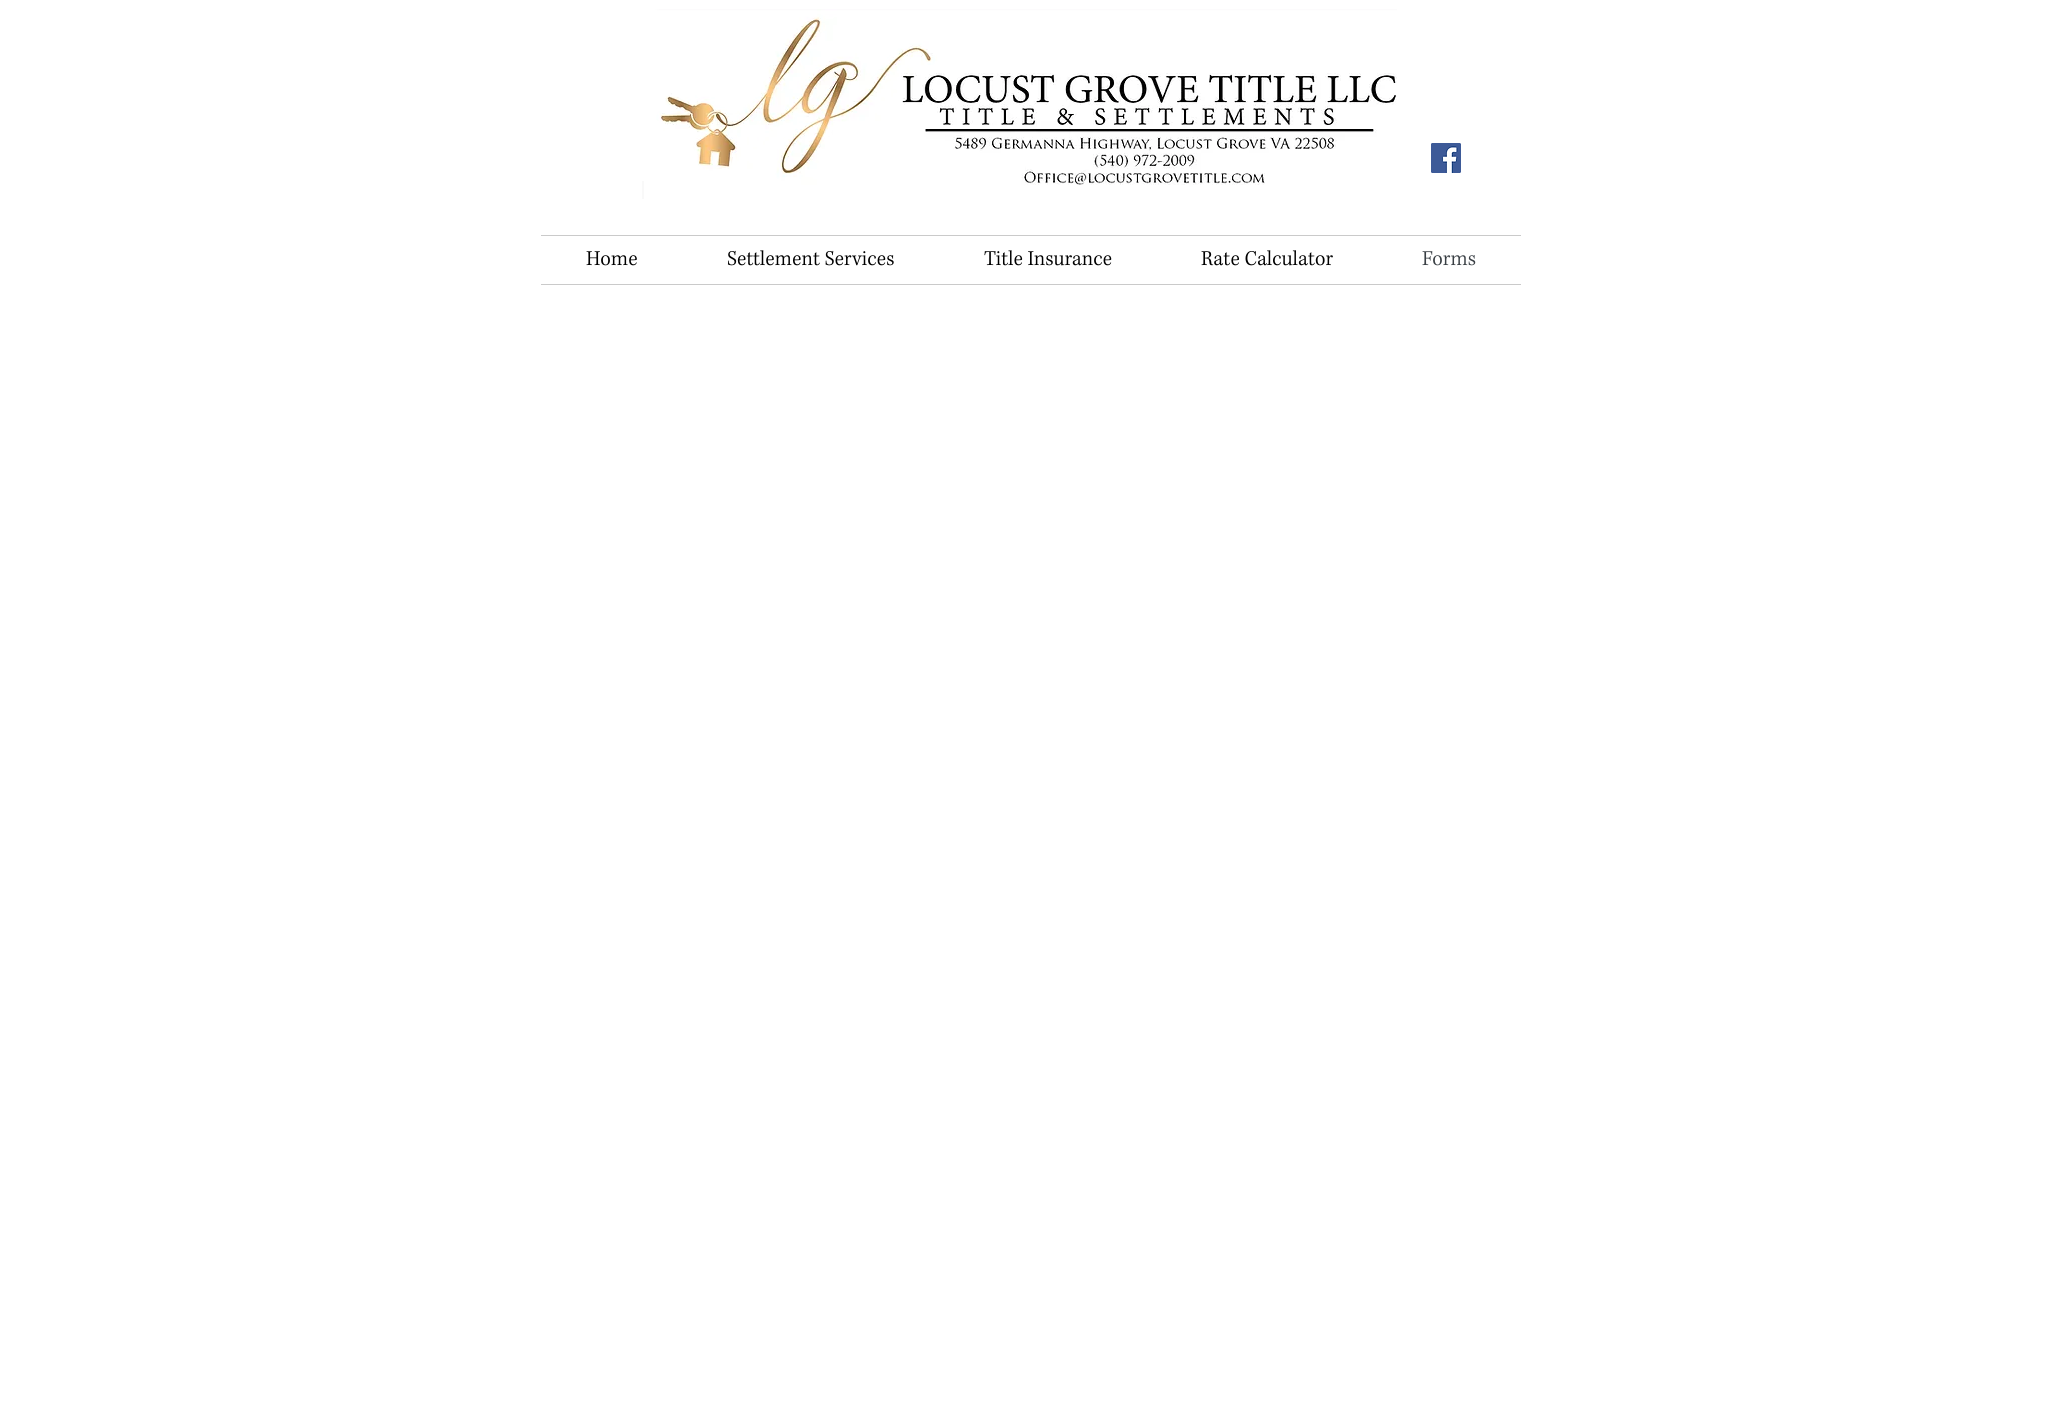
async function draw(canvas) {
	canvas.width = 2061;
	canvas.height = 1407;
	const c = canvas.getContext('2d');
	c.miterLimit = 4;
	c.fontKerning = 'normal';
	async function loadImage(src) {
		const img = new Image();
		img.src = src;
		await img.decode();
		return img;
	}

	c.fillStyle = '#fff';
	c.fillRect(0, 0, 2061, 1407);
	c.drawImage(await loadImage('img1.png'), 642, 9, 755, 190);
	c.drawImage(await loadImage('img2.png'), 1431, 143, 30, 30);
	c.fillStyle = '#cacaca';
	c.fillRect(541, 235, 980, 1);
	c.fillRect(541, 284, 980, 1);
	c.drawImage(await loadImage('img3.png'), 586, 251, 51, 15);
	c.drawImage(await loadImage('img4.png'), 727, 250, 167, 16);
	c.drawImage(await loadImage('img5.png'), 984, 250, 128, 16);
	c.drawImage(await loadImage('img6.png'), 1201, 250, 132, 16);
	c.drawImage(await loadImage('img7.png'), 1422, 251, 54, 15);
}

draw(document.querySelector('canvas'));
